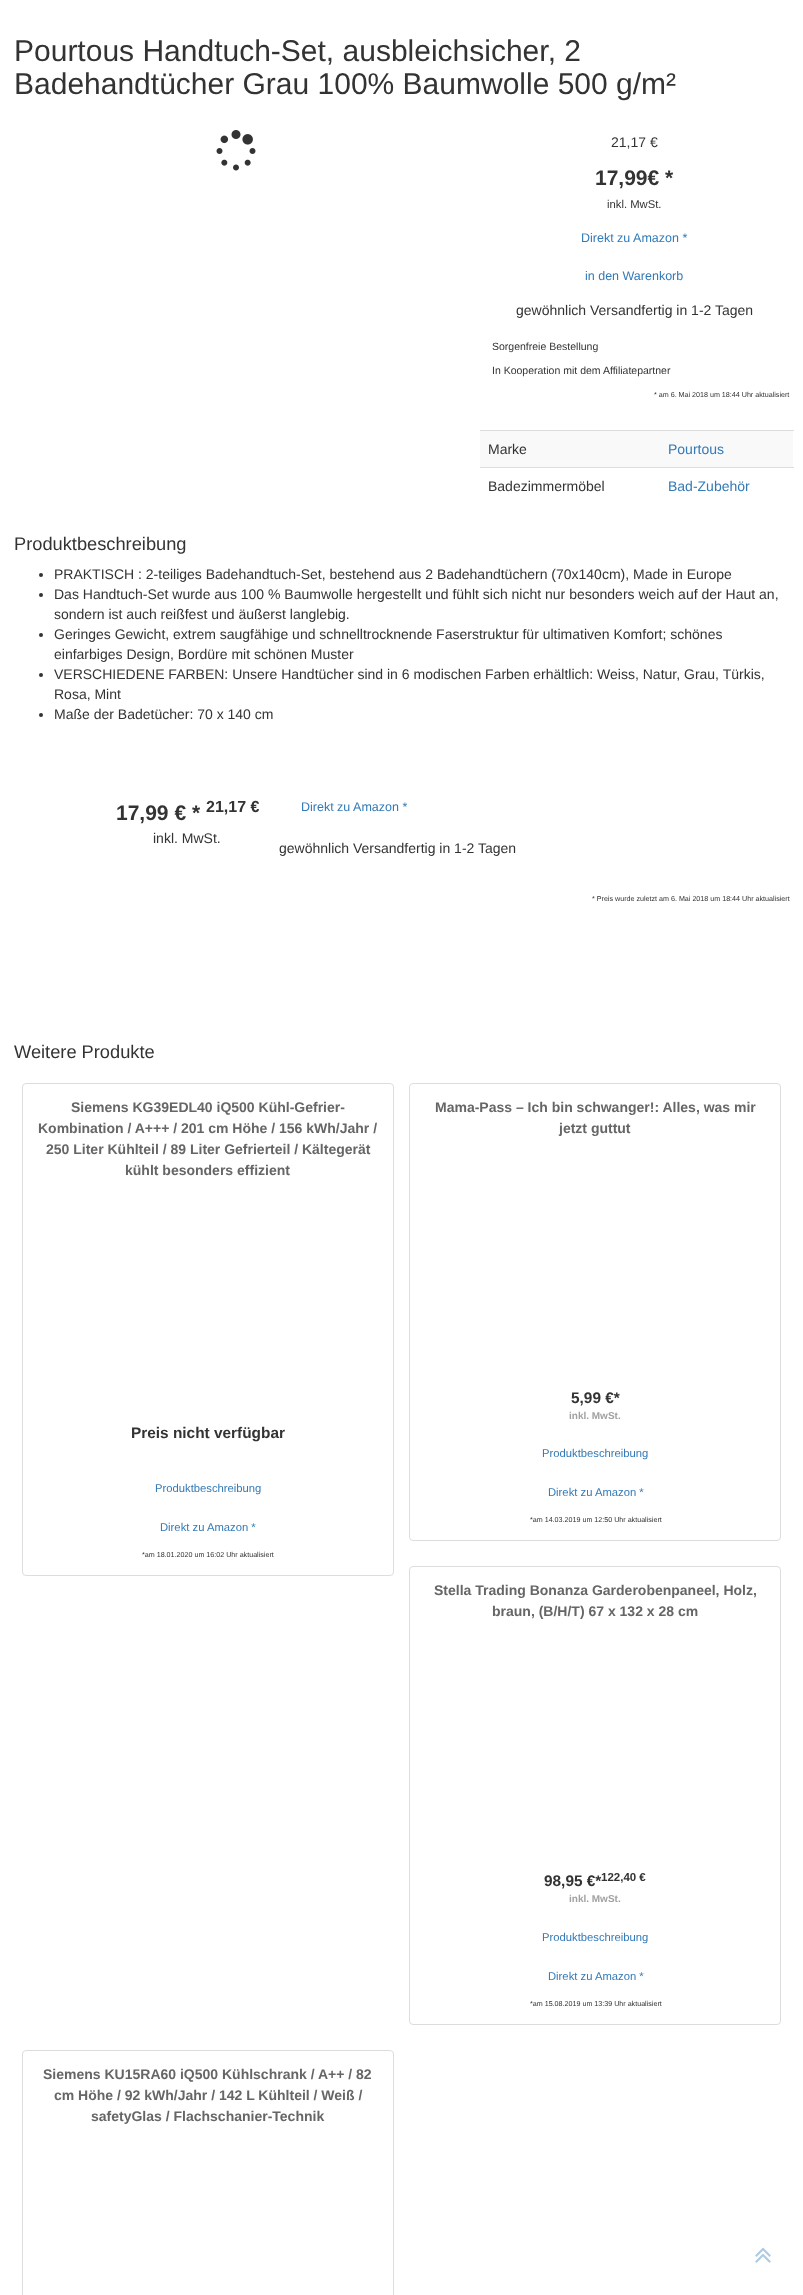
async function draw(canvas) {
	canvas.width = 803;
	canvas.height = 2295;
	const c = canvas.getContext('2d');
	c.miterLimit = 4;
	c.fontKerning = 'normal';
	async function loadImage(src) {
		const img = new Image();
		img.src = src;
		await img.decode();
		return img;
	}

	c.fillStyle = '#fff';
	c.fillRect(0, 0, 803, 2295);
	c.font = '30px Liberation Sans';
	c.fillStyle = '#333';
	c.fillText('Pourtous Handtuch-Set, ausbleichsicher, 2', 14, 61);
	c.fillText('Badehandtücher Grau 100% Baumwolle 500 g/m²', 14, 94);
	c.drawImage(await loadImage('img1.png'), 216, 130, 40, 41);
	c.font = '14px Liberation Sans';
	c.fillText('21,17 €', 611, 147);
	c.font = 'bold 21px Liberation Sans';
	c.fillText('17,99€ *', 595, 185);
	c.font = '11.25px Liberation Sans';
	c.fillText('inkl. MwSt.', 607, 208);
	c.font = '12.5px Liberation Sans';
	c.fillStyle = '#337ab7';
	c.fillText('Direkt zu Amazon *', 581, 242);
	c.fillText('in den Warenkorb', 585, 280);
	c.font = '14px Liberation Sans';
	c.fillStyle = '#333';
	c.fillText('gewöhnlich Versandfertig in 1-2 Tagen', 516, 315);
	c.font = '10.5px Liberation Sans';
	c.fillText('Sorgenfreie Bestellung', 492, 350);
	c.fillText('In Kooperation mit dem Affiliatepartner', 492, 374);
	c.font = '7.15px Liberation Sans';
	c.fillText('* am 6. Mai 2018 um 18:44 Uhr aktualisiert', 654, 397);
	c.fillStyle = '#f9f9f9';
	c.fillRect(480, 431, 313, 36);
	c.font = '14px Liberation Sans';
	c.fillStyle = '#333';
	c.fillText('Marke', 488, 454);
	c.fillStyle = '#ddd';
	c.fillRect(480, 430, 314, 1);
	c.fillStyle = '#337ab7';
	c.fillText('Pourtous', 668, 454);
	c.fillStyle = '#333';
	c.fillText('Badezimmermöbel', 488, 491);
	c.fillStyle = '#ddd';
	c.fillRect(480, 467, 314, 1);
	c.fillStyle = '#337ab7';
	c.fillText('Bad-Zubehör', 668, 491);
	c.font = '18.25px Liberation Sans';
	c.fillStyle = '#333';
	c.fillText('Produktbeschreibung', 14, 550);
	c.beginPath();
	c.arc(41, 575, 2, 0, 2 * Math.PI);
	c.fill();
	c.font = '14px Liberation Sans';
	c.fillText('PRAKTISCH : 2-teiliges Badehandtuch-Set, bestehend aus 2 Badehandtüchern (70x140cm), Made in Europe', 54, 579);
	c.beginPath();
	c.arc(41, 595, 2, 0, 2 * Math.PI);
	c.fill();
	c.fillText('Das Handtuch-Set wurde aus 100 % Baumwolle hergestellt und fühlt sich nicht nur besonders weich auf der Haut an,', 54, 599);
	c.fillText('sondern ist auch reißfest und äußerst langlebig.', 54, 619);
	c.beginPath();
	c.arc(41, 635, 2, 0, 2 * Math.PI);
	c.fill();
	c.fillText('Geringes Gewicht, extrem saugfähige und schnelltrocknende Faserstruktur für ultimativen Komfort; schönes', 54, 639);
	c.fillText('einfarbiges Design, Bordüre mit schönen Muster', 54, 659);
	c.beginPath();
	c.arc(41, 675, 2, 0, 2 * Math.PI);
	c.fill();
	c.fillText('VERSCHIEDENE FARBEN: Unsere Handtücher sind in 6 modischen Farben erhältlich: Weiss, Natur, Grau, Türkis,', 54, 679);
	c.fillText('Rosa, Mint', 54, 699);
	c.beginPath();
	c.arc(41, 715, 2, 0, 2 * Math.PI);
	c.fill();
	c.fillText('Maße der Badetücher: 70 x 140 cm', 54, 719);
	c.font = 'bold 21px Liberation Sans';
	c.fillText('17,99 € *', 116, 820);
	c.font = 'bold 16px Liberation Sans';
	c.fillText('21,17 €', 206, 812);
	c.font = '14px Liberation Sans';
	c.fillText('inkl. MwSt.', 153, 843);
	c.font = '12.5px Liberation Sans';
	c.fillStyle = '#337ab7';
	c.fillText('Direkt zu Amazon *', 301, 811);
	c.font = '14px Liberation Sans';
	c.fillStyle = '#333';
	c.fillText('gewöhnlich Versandfertig in 1-2 Tagen', 279, 853);
	c.font = '7.15px Liberation Sans';
	c.fillText('* Preis wurde zuletzt am 6. Mai 2018 um 18:44 Uhr aktualisiert', 592, 901);
	c.font = '18.25px Liberation Sans';
	c.fillText('Weitere Produkte', 14, 1058);
	c.beginPath();
	c.roundRect(22.5, 1083.5, 371, 492, 3.5);
	c.strokeStyle = '#ddd';
	c.stroke();
	c.font = 'bold 14px Liberation Sans';
	c.fillStyle = '#666';
	for (const [text, x, y] of [
		['Siemens KG39EDL40 iQ500 Kühl-Gefrier-', 71, 1112],
		['Kombination / A+++ / 201 cm Höhe / 156 kWh/Jahr /', 38, 1133],
		['250 Liter Kühlteil / 89 Liter Gefrierteil / Kältegerät', 46, 1154],
		['kühlt besonders effizient', 125, 1175],
	]) {
		c.fillText(text, x, y);
	}
	c.font = 'bold 15.4px Liberation Sans';
	c.fillStyle = '#333';
	c.fillText('Preis nicht verfügbar', 131, 1438);
	c.font = '11.25px Liberation Sans';
	c.fillStyle = '#337ab7';
	c.fillText('Produktbeschreibung', 155, 1492);
	c.fillText('Direkt zu Amazon *', 160, 1531);
	c.font = '7.15px Liberation Sans';
	c.fillStyle = '#333';
	c.fillText('*am 18.01.2020 um 16:02 Uhr aktualisiert', 142, 1557);
	c.beginPath();
	c.roundRect(409.5, 1083.5, 371, 457, 3.5);
	c.stroke();
	c.font = 'bold 14px Liberation Sans';
	c.fillStyle = '#666';
	c.fillText('Mama-Pass – Ich bin schwanger!: Alles, was mir', 435, 1112);
	c.fillText('jetzt guttut', 559, 1133);
	c.font = 'bold 15.4px Liberation Sans';
	c.fillStyle = '#333';
	c.fillText('5,99 €*', 571, 1403);
	c.font = 'bold 10px Liberation Sans';
	c.fillStyle = '#a2a1a1';
	c.fillText('inkl. MwSt.', 569, 1419);
	c.font = '11.25px Liberation Sans';
	c.fillStyle = '#337ab7';
	c.fillText('Produktbeschreibung', 542, 1457);
	c.fillText('Direkt zu Amazon *', 548, 1496);
	c.font = '7.15px Liberation Sans';
	c.fillStyle = '#333';
	c.fillText('*am 14.03.2019 um 12:50 Uhr aktualisiert', 530, 1522);
	c.beginPath();
	c.roundRect(409.5, 1566.5, 371, 458, 3.5);
	c.stroke();
	c.font = 'bold 14px Liberation Sans';
	c.fillStyle = '#666';
	c.fillText('Stella Trading Bonanza Garderobenpaneel, Holz,', 434, 1595);
	c.fillText('braun, (B/H/T) 67 x 132 x 28 cm', 492, 1616);
	c.font = 'bold 15.4px Liberation Sans';
	c.fillStyle = '#333';
	c.fillText('98,95 €*', 544, 1886);
	c.font = 'bold 11.5px Liberation Sans';
	c.fillText('122,40 €', 601, 1881);
	c.font = 'bold 10px Liberation Sans';
	c.fillStyle = '#a2a1a1';
	c.fillText('inkl. MwSt.', 569, 1902);
	c.font = '11.25px Liberation Sans';
	c.fillStyle = '#337ab7';
	c.fillText('Produktbeschreibung', 542, 1941);
	c.fillText('Direkt zu Amazon *', 548, 1980);
	c.font = '7.15px Liberation Sans';
	c.fillStyle = '#333';
	c.fillText('*am 15.08.2019 um 13:39 Uhr aktualisiert', 530, 2006);
	c.beginPath();
	c.roundRect(22.5, 2050.5, 371, 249, 3.5);
	c.stroke();
	c.font = 'bold 14px Liberation Sans';
	c.fillStyle = '#666';
	for (const [text, x, y] of [
		['Siemens KU15RA60 iQ500 Kühlschrank / A++ / 82', 43, 2079],
		['cm Höhe / 92 kWh/Jahr / 142 L Kühlteil / Weiß /', 54, 2100],
		['safetyGlas / Flachschanier-Technik', 91, 2121],
	]) {
		c.fillText(text, x, y);
	}
	c.drawImage(await loadImage('img2.png'), 755, 2247, 16, 16);
}

draw(document.querySelector('canvas'));
